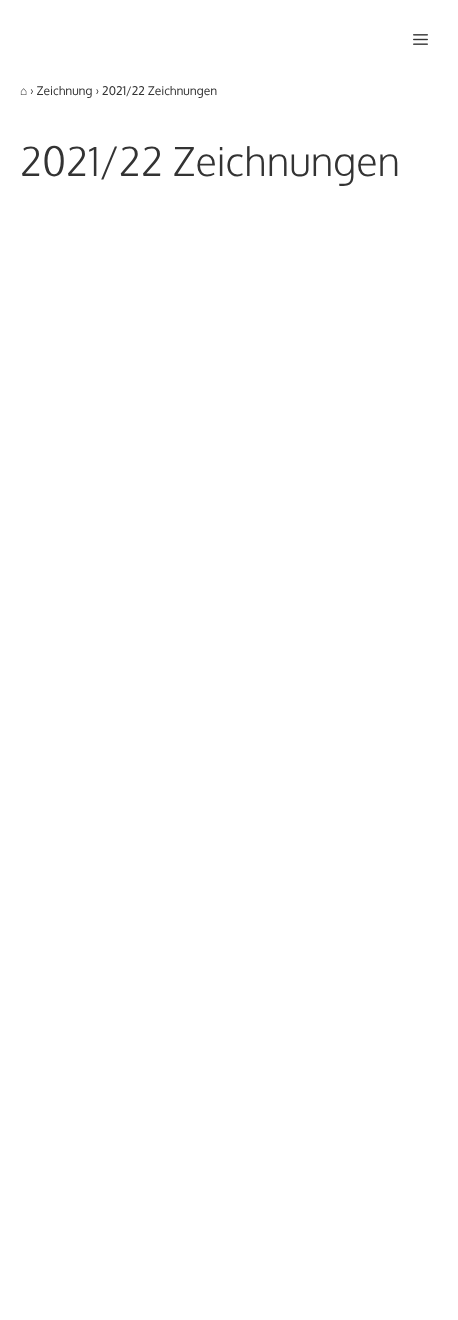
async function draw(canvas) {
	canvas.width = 458;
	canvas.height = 1320;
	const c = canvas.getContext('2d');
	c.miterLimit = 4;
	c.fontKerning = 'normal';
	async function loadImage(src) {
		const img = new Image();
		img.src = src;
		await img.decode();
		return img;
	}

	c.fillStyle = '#fff';
	c.fillRect(0, 0, 458, 1320);
	c.drawImage(await loadImage('img1.png'), 413, 34, 15, 11);
	c.font = '12px Liberation Serif';
	c.fillStyle = '#333';
	c.fillText('⌂', 20, 95);
	c.font = '12px Oxygen';
	c.fillText('› Zeichnung › 2021/22 Zeichnungen', 30, 95);
	c.font = '300 40px Oxygen';
	c.fillText('2021/22 Zeichnungen', 20, 176);
}

draw(document.querySelector('canvas'));
